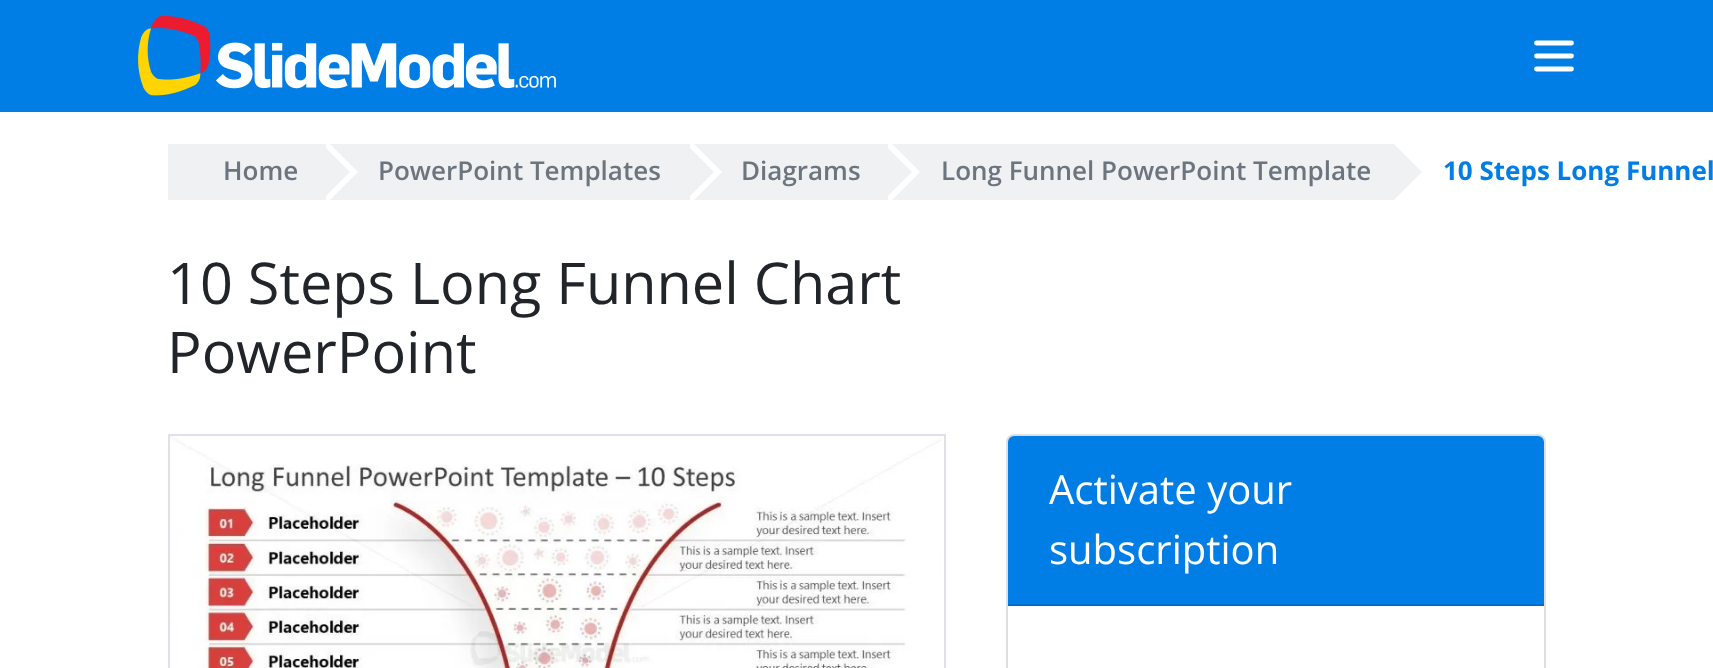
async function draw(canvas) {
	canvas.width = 1713;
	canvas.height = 668;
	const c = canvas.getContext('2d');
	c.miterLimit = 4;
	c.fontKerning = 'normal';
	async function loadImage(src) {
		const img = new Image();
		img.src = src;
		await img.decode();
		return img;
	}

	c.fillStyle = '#fff';
	c.fillRect(0, 0, 1713, 668);
	c.fillStyle = '#007ee5';
	c.fillRect(0, 0, 1713, 112);
	c.drawImage(await loadImage('img1.png'), 138, 16, 418, 80);
	c.beginPath();
	c.moveTo(1536.5, 43);
	c.lineTo(1571.5, 43);
	c.moveTo(1536.5, 56);
	c.lineTo(1571.5, 56);
	c.moveTo(1536.5, 69);
	c.lineTo(1571.5, 69);
	c.strokeStyle = '#fff';
	c.lineWidth = 4.8;
	c.lineCap = 'round';
	c.stroke();
	c.fillStyle = '#eff1f3';
	c.fillRect(168, 144, 1226, 56);
	c.fillStyle = '#fff';
	c.beginPath();
	c.moveTo(326, 204);
	c.lineTo(326, 140);
	c.lineTo(358, 172);
	c.closePath();
	c.fill();
	c.font = '600 26px Open Sans';
	c.fillStyle = '#6c757d';
	c.fillText('Home', 223, 180);
	c.fillStyle = '#eff1f3';
	c.beginPath();
	c.moveTo(322, 200);
	c.lineTo(322, 144);
	c.lineTo(350, 172);
	c.closePath();
	c.fill();
	c.fillStyle = '#fff';
	c.beginPath();
	c.moveTo(690, 204);
	c.lineTo(690, 140);
	c.lineTo(722, 172);
	c.closePath();
	c.fill();
	c.fillStyle = '#6c757d';
	c.fillText('PowerPoint Templates', 378, 180);
	c.fillStyle = '#eff1f3';
	c.beginPath();
	c.moveTo(686, 200);
	c.lineTo(686, 144);
	c.lineTo(714, 172);
	c.closePath();
	c.fill();
	c.fillStyle = '#fff';
	c.beginPath();
	c.moveTo(888, 204);
	c.lineTo(888, 140);
	c.lineTo(920, 172);
	c.closePath();
	c.fill();
	c.fillStyle = '#6c757d';
	c.fillText('Diagrams', 741, 180);
	c.fillStyle = '#eff1f3';
	c.beginPath();
	c.moveTo(884, 200);
	c.lineTo(884, 144);
	c.lineTo(912, 172);
	c.closePath();
	c.fill();
	c.fillStyle = '#6c757d';
	c.fillText('Long Funnel PowerPoint Template', 941, 180);
	c.fillStyle = '#eff1f3';
	c.beginPath();
	c.moveTo(1394, 200);
	c.lineTo(1394, 144);
	c.lineTo(1422, 172);
	c.closePath();
	c.fill();
	c.font = 'bold 26px Open Sans';
	c.fillStyle = '#007ee5';
	c.fillText('10 Steps Long Funnel', 1443, 180);
	c.font = '57.6px Open Sans';
	c.fillStyle = '#212529';
	c.fillText('10 Steps Long Funnel Chart', 167, 304);
	c.fillText('PowerPoint', 167, 373);
	c.strokeStyle = '#dee2e6';
	c.lineWidth = 2;
	c.strokeRect(169, 435, 776, 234);
	c.drawImage(await loadImage('img2.png'), 170, 436, 772, 232);
	c.beginPath();
	c.roundRect(1007, 435, 538, 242, 7);
	c.strokeStyle = '#dfdfdf';
	c.stroke();
	c.fillStyle = '#007ee5';
	c.beginPath();
	c.roundRect(1008, 436, 536, 170, [6, 6, 0, 0]);
	c.fill();
	c.fillStyle = '#006ec8';
	c.fillRect(1008, 604, 536, 2);
	c.font = '40px Open Sans';
	c.fillStyle = '#fff';
	c.fillText('Activate your', 1049, 504);
	c.fillText('subscription', 1049, 564);
}

draw(document.querySelector('canvas'));
